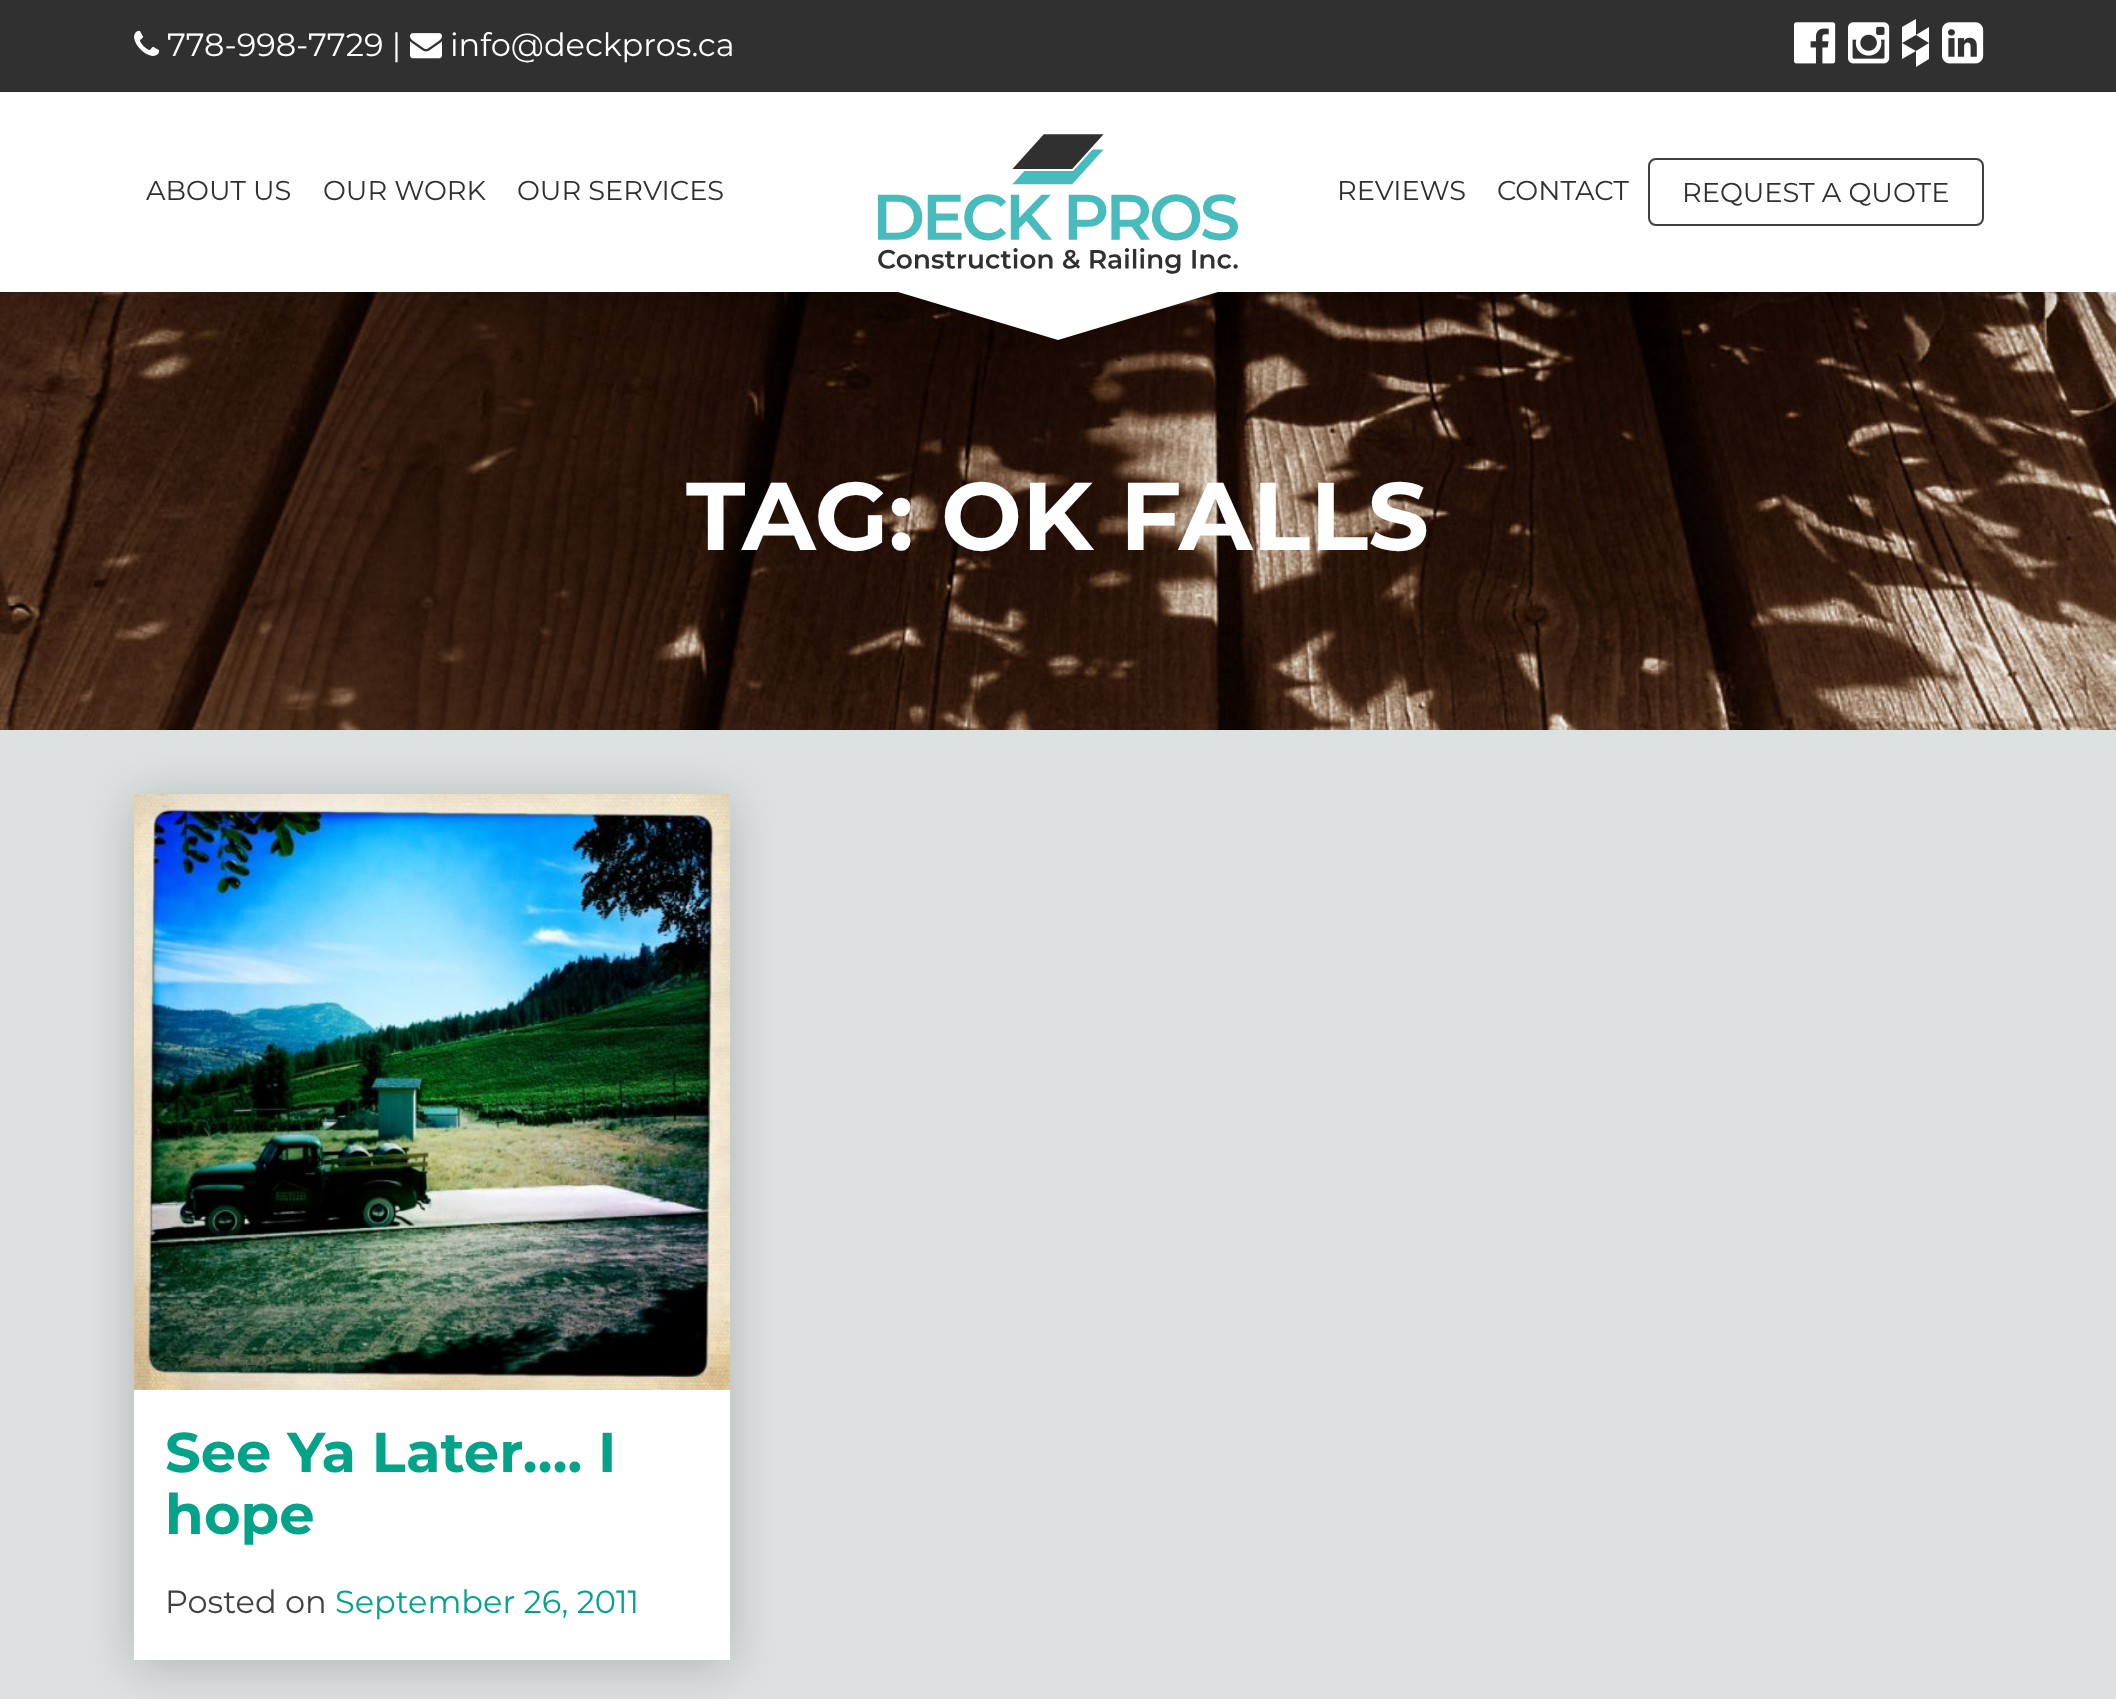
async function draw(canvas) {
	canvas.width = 2116;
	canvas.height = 1699;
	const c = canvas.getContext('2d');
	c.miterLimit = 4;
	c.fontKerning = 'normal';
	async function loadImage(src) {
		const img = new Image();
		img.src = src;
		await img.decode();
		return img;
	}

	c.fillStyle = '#fff';
	c.fillRect(0, 0, 2116, 1699);
	c.drawImage(await loadImage('img7.png'), 0, 292, 2116, 438);
	c.fillStyle = '#00000033';
	c.filter = 'blur(25px)';
	c.beginPath();
	c.rect(0, 6, 2116, 292);
	c.fill();
	c.filter = 'none';
	c.fillStyle = '#303030';
	c.fillRect(0, 0, 2116, 92);
	c.drawImage(await loadImage('img1.png'), 134, 30, 26, 26);
	c.font = '32px Montserrat';
	c.fillStyle = '#fff';
	c.fillText('778-998-7729 |', 167, 56);
	c.drawImage(await loadImage('img2.png'), 410, 33, 32, 26);
	c.fillText('info@deckpros.ca', 450, 56);
	c.drawImage(await loadImage('img3.png'), 1794, 22, 42, 42);
	c.drawImage(await loadImage('img4.png'), 1848, 22, 42, 42);
	c.beginPath();
	c.moveTo(1916, 51);
	c.lineTo(1929, 43);
	c.lineTo(1929, 59);
	c.lineTo(1916, 67);
	c.closePath();
	c.moveTo(1902, 43);
	c.lineTo(1902, 59);
	c.lineTo(1916, 51);
	c.closePath();
	c.moveTo(1916, 19);
	c.lineTo(1916, 35);
	c.lineTo(1902, 43);
	c.lineTo(1902, 27);
	c.closePath();
	c.moveTo(1916, 35);
	c.lineTo(1929, 27);
	c.lineTo(1929, 43);
	c.closePath();
	c.fill();
	c.drawImage(await loadImage('img5.png'), 1942, 22, 42, 42);
	c.fillRect(0, 92, 2116, 200);
	c.drawImage(await loadImage('img6.png'), 878, 134, 360, 140);
	c.font = '27.25px Montserrat';
	c.fillStyle = '#303030';
	for (const [text, x, y] of [
		['ABOUT US', 146, 200],
		['OUR WORK', 323, 200],
		['OUR SERVICES', 517, 200],
		['REVIEWS', 1337, 200],
		['CONTACT', 1497, 200],
	]) {
		c.fillText(text, x, y);
	}
	c.beginPath();
	c.roundRect(1649, 159, 334, 66, 7);
	c.strokeStyle = '#404040';
	c.lineWidth = 2;
	c.stroke();
	c.fillText('REQUEST A QUOTE', 1682, 202);
	c.fillStyle = '#fff';
	c.beginPath();
	c.moveTo(898, 292);
	c.lineTo(1218, 292);
	c.lineTo(1058, 340);
	c.closePath();
	c.fill();
	c.font = 'bold 96px Montserrat';
	c.fillText('TAG: OK FALLS', 686, 550);
	c.fillStyle = '#dce1e1';
	c.fillRect(0, 730, 2116, 969);
	c.fillStyle = '#00000033';
	c.filter = 'blur(25px)';
	c.beginPath();
	c.rect(134, 800, 596, 866);
	c.fill();
	c.filter = 'none';
	c.fillStyle = '#fff';
	c.fillRect(134, 1390, 596, 270);
	c.drawImage(await loadImage('img8.png'), 134, 794, 596, 596);
	c.font = 'bold 56px Montserrat';
	c.fillStyle = '#02a388';
	c.fillText('See Ya Later…. I', 165, 1472);
	c.fillText('hope', 165, 1534);
	c.font = '32px Montserrat';
	c.fillStyle = '#404040';
	c.fillText('Posted on', 165, 1613);
	c.fillStyle = '#02a388';
	c.fillText('September 26, 2011', 335, 1613);
}

draw(document.querySelector('canvas'));
